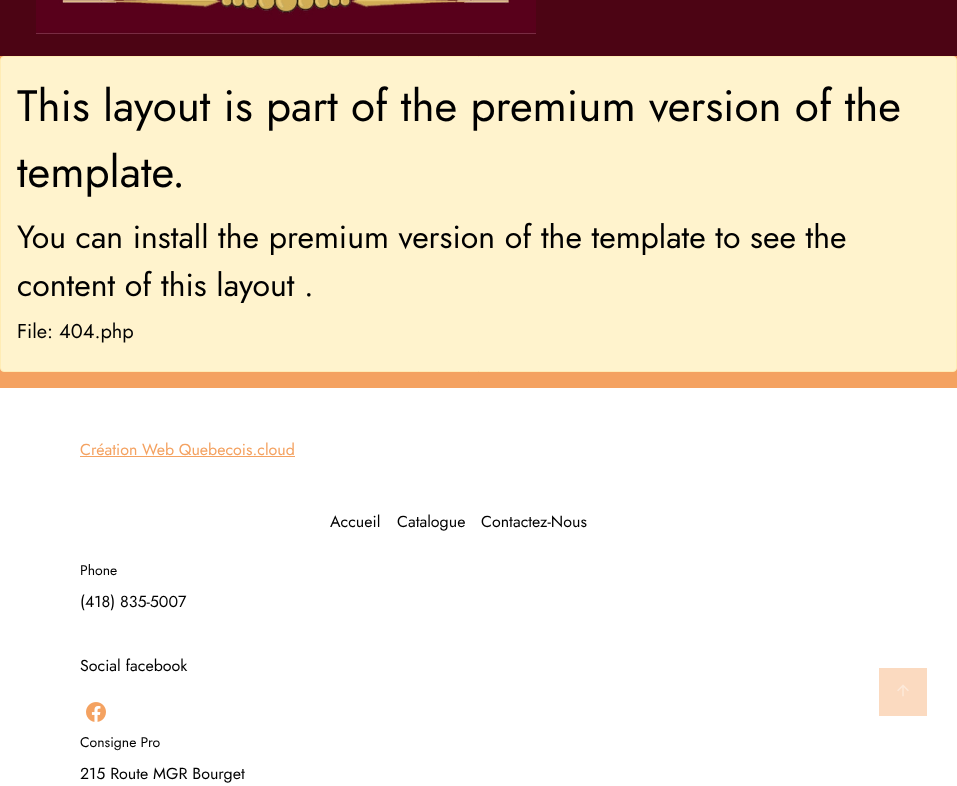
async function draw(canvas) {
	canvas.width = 957;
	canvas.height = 786;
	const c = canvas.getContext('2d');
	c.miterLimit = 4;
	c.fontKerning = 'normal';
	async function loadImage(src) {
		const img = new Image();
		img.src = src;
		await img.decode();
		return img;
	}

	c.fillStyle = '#f4a261';
	c.fillRect(0, 0, 957, 786);
	c.fillStyle = '#4c0414';
	c.fillRect(0, 0, 957, 56);
	c.drawImage(await loadImage('img1.png'), 36, 0, 500, 34);
	c.fillStyle = '#fff3cd';
	c.beginPath();
	c.roundRect(0.5, 56.5, 956, 315, 3.5);
	c.fill();
	c.strokeStyle = '#ffecb5';
	c.stroke();
	c.font = '44px Jost';
	c.fillStyle = '#000';
	c.fillText('This layout is part of the premium version of the', 17, 121);
	c.fillText('template.', 17, 187);
	c.font = '32px Jost';
	c.fillText('You can install the premium version of the template to see the', 17, 248);
	c.fillText('content of this layout .', 17, 296);
	c.font = '20px Jost';
	c.fillText('File: 404.php', 17, 338);
	c.fillStyle = '#fff';
	c.fillRect(0, 388, 957, 398);
	c.font = '16px Jost';
	c.fillStyle = '#f4a261';
	c.fillText('Création Web Quebecois.cloud', 80, 455);
	c.fillRect(80, 456, 215, 1);
	c.fillStyle = '#000';
	for (const [text, x, y] of [
		['Accueil', 330, 527],
		['Catalogue', 397, 527],
		['Contactez-Nous', 481, 527],
	]) {
		c.fillText(text, x, y);
	}
	c.font = '14px Jost';
	c.fillText('Phone', 80, 575);
	c.font = '16px Jost';
	c.fillText('(418) 835-5007', 80, 607);
	c.fillText('Social facebook', 80, 671);
	c.drawImage(await loadImage('img2.png'), 86, 702, 20, 20);
	c.font = '14px Jost';
	c.fillText('Consigne Pro', 80, 747);
	c.font = '16px Jost';
	c.fillText('215 Route MGR Bourget', 80, 779);
	c.fillStyle = '#fbdac0';
	c.fillRect(879, 668, 48, 48);
	c.drawImage(await loadImage('img3.png'), 897, 684, 12, 13);
}

draw(document.querySelector('canvas'));
